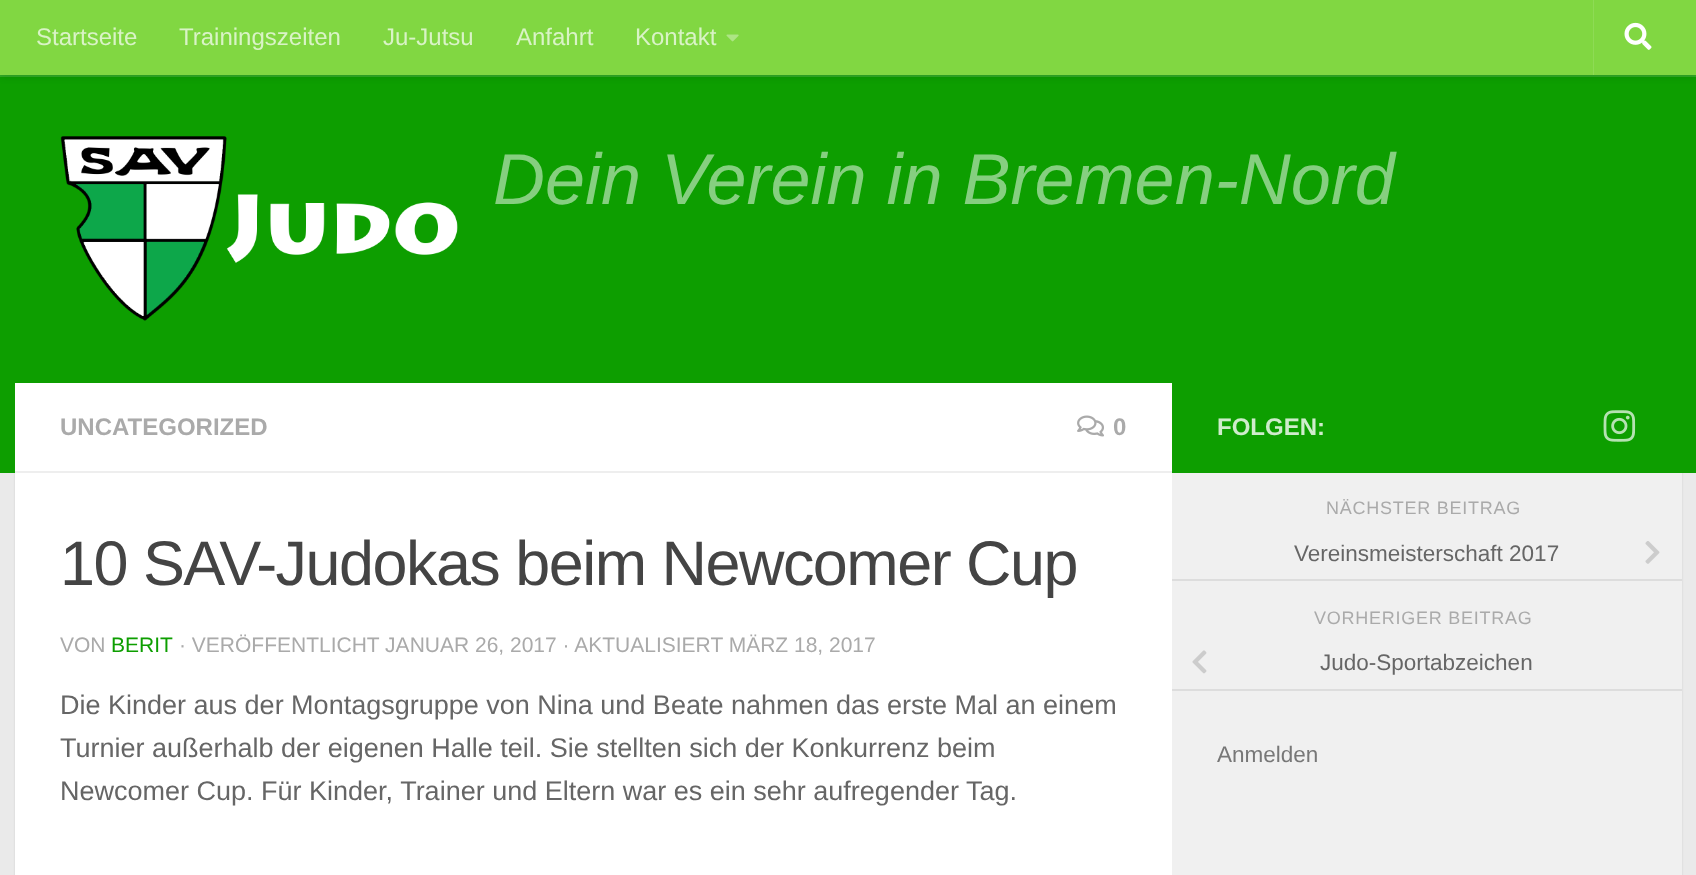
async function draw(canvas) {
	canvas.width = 1696;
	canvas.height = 875;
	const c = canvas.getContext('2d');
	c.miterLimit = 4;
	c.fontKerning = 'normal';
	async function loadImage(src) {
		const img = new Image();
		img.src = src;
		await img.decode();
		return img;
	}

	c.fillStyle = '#eaeaea';
	c.fillRect(0, 0, 1696, 875);
	c.fillStyle = '#0000001a';
	c.filter = 'blur(1px)';
	c.beginPath();
	c.rect(15, 384, 1667, 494);
	c.fill();
	c.filter = 'none';
	c.fillStyle = '#0d9e00';
	c.fillRect(0, 77, 1696, 396);
	c.fillStyle = '#31ad26';
	c.beginPath();
	c.moveTo(0, 75);
	c.lineTo(0, 77);
	c.lineTo(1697, 77);
	c.lineTo(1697, 2);
	c.lineTo(1696, 2);
	c.lineTo(1696, 75);
	c.closePath();
	c.fill();
	c.fillStyle = '#00000033';
	c.filter = 'blur(4px)';
	c.beginPath();
	c.rect(0, 0, 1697, 75);
	c.fill();
	c.filter = 'none';
	c.fillStyle = '#81d742';
	c.fillRect(0, 0, 1696, 75);
	c.font = '24px Liberation Sans';
	c.fillStyle = '#d9f3c6';
	for (const [text, x, y] of [
		['Startseite', 36, 45],
		['Trainingszeiten', 179, 45],
		['Ju-Jutsu', 383, 45],
		['Anfahrt', 516, 45],
		['Kontakt', 635, 45],
	]) {
		c.fillText(text, x, y);
	}
	c.drawImage(await loadImage('img1.png'), 726, 34, 13, 8);
	c.fillStyle = '#8edb55';
	c.fillRect(1593, 0, 1, 75);
	c.drawImage(await loadImage('img2.png'), 1624, 22, 28, 28);
	c.drawImage(await loadImage('img3.png'), 60, 136, 398, 185);
	c.font = 'italic 72px Liberation Sans';
	c.fillStyle = '#86cf80';
	c.fillText('Dein Verein in Bremen-Nord', 493, 204);
	c.fillStyle = '#fff';
	c.fillRect(15, 383, 1157, 492);
	c.fillStyle = '#eee';
	c.fillRect(15, 471, 1157, 2);
	c.font = 'bold 24px Liberation Sans';
	c.fillStyle = '#aaa';
	c.fillText('UNCATEGORIZED', 60, 435);
	c.drawImage(await loadImage('img4.png'), 1077, 415, 27, 22);
	c.fillText('0', 1113, 435);
	c.letterSpacing = '-1.5px';
	c.font = '62.9px Liberation Sans';
	c.fillStyle = '#444';
	c.fillText('10 SAV-Judokas beim Newcomer Cup', 60, 585);
	c.letterSpacing = '0px';
	c.font = '21px Liberation Sans';
	c.fillStyle = '#aaa';
	c.fillText('VON', 60, 652);
	c.fillStyle = '#0d9e00';
	c.fillText('BERIT', 111, 652);
	c.fillStyle = '#aaa';
	c.fillText('· VERÖFFENTLICHT JANUAR 26, 2017 · AKTUALISIERT MÄRZ 18, 2017', 179, 652);
	c.font = '27px Liberation Sans';
	c.fillStyle = '#666';
	for (const [text, x, y] of [
		['Die Kinder aus der Montagsgruppe von Nina und Beate nahmen das erste Mal an einem', 60, 714],
		['Turnier außerhalb der eigenen Halle teil. Sie stellten sich der Konkurrenz beim', 60, 757],
		['Newcomer Cup. Für Kinder, Trainer und Eltern war es ein sehr aufregender Tag.', 60, 800],
	]) {
		c.fillText(text, x, y);
	}
	c.font = 'bold 24px Liberation Sans';
	c.fillStyle = '#cfeccc';
	c.fillText('FOLGEN:', 1217, 435);
	c.drawImage(await loadImage('img5.png'), 1603, 410, 33, 32);
	c.fillStyle = '#f0f0f0';
	c.fillRect(1172, 473, 510, 402);
	c.letterSpacing = '0.75px';
	c.font = '18px Liberation Sans';
	c.fillStyle = '#aaa';
	c.fillText('NÄCHSTER BEITRAG', 1326, 514);
	c.fillStyle = '#ddd';
	c.fillRect(1172, 579, 510, 2);
	c.letterSpacing = '0px';
	c.font = '22.5px Liberation Sans';
	c.fillStyle = '#666';
	c.fillText('Vereinsmeisterschaft 2017', 1294, 561);
	c.drawImage(await loadImage('img6.png'), 1645, 541, 15, 23);
	c.letterSpacing = '0.75px';
	c.font = '18px Liberation Sans';
	c.fillStyle = '#aaa';
	c.fillText('VORHERIGER BEITRAG', 1314, 624);
	c.fillStyle = '#ddd';
	c.fillRect(1172, 689, 510, 2);
	c.drawImage(await loadImage('img7.png'), 1192, 650, 15, 24);
	c.letterSpacing = '0px';
	c.font = '22.5px Liberation Sans';
	c.fillStyle = '#666';
	c.fillText('Judo-Sportabzeichen', 1320, 670);
	c.fillStyle = '#777';
	c.fillText('Anmelden', 1217, 762);
}

draw(document.querySelector('canvas'));
